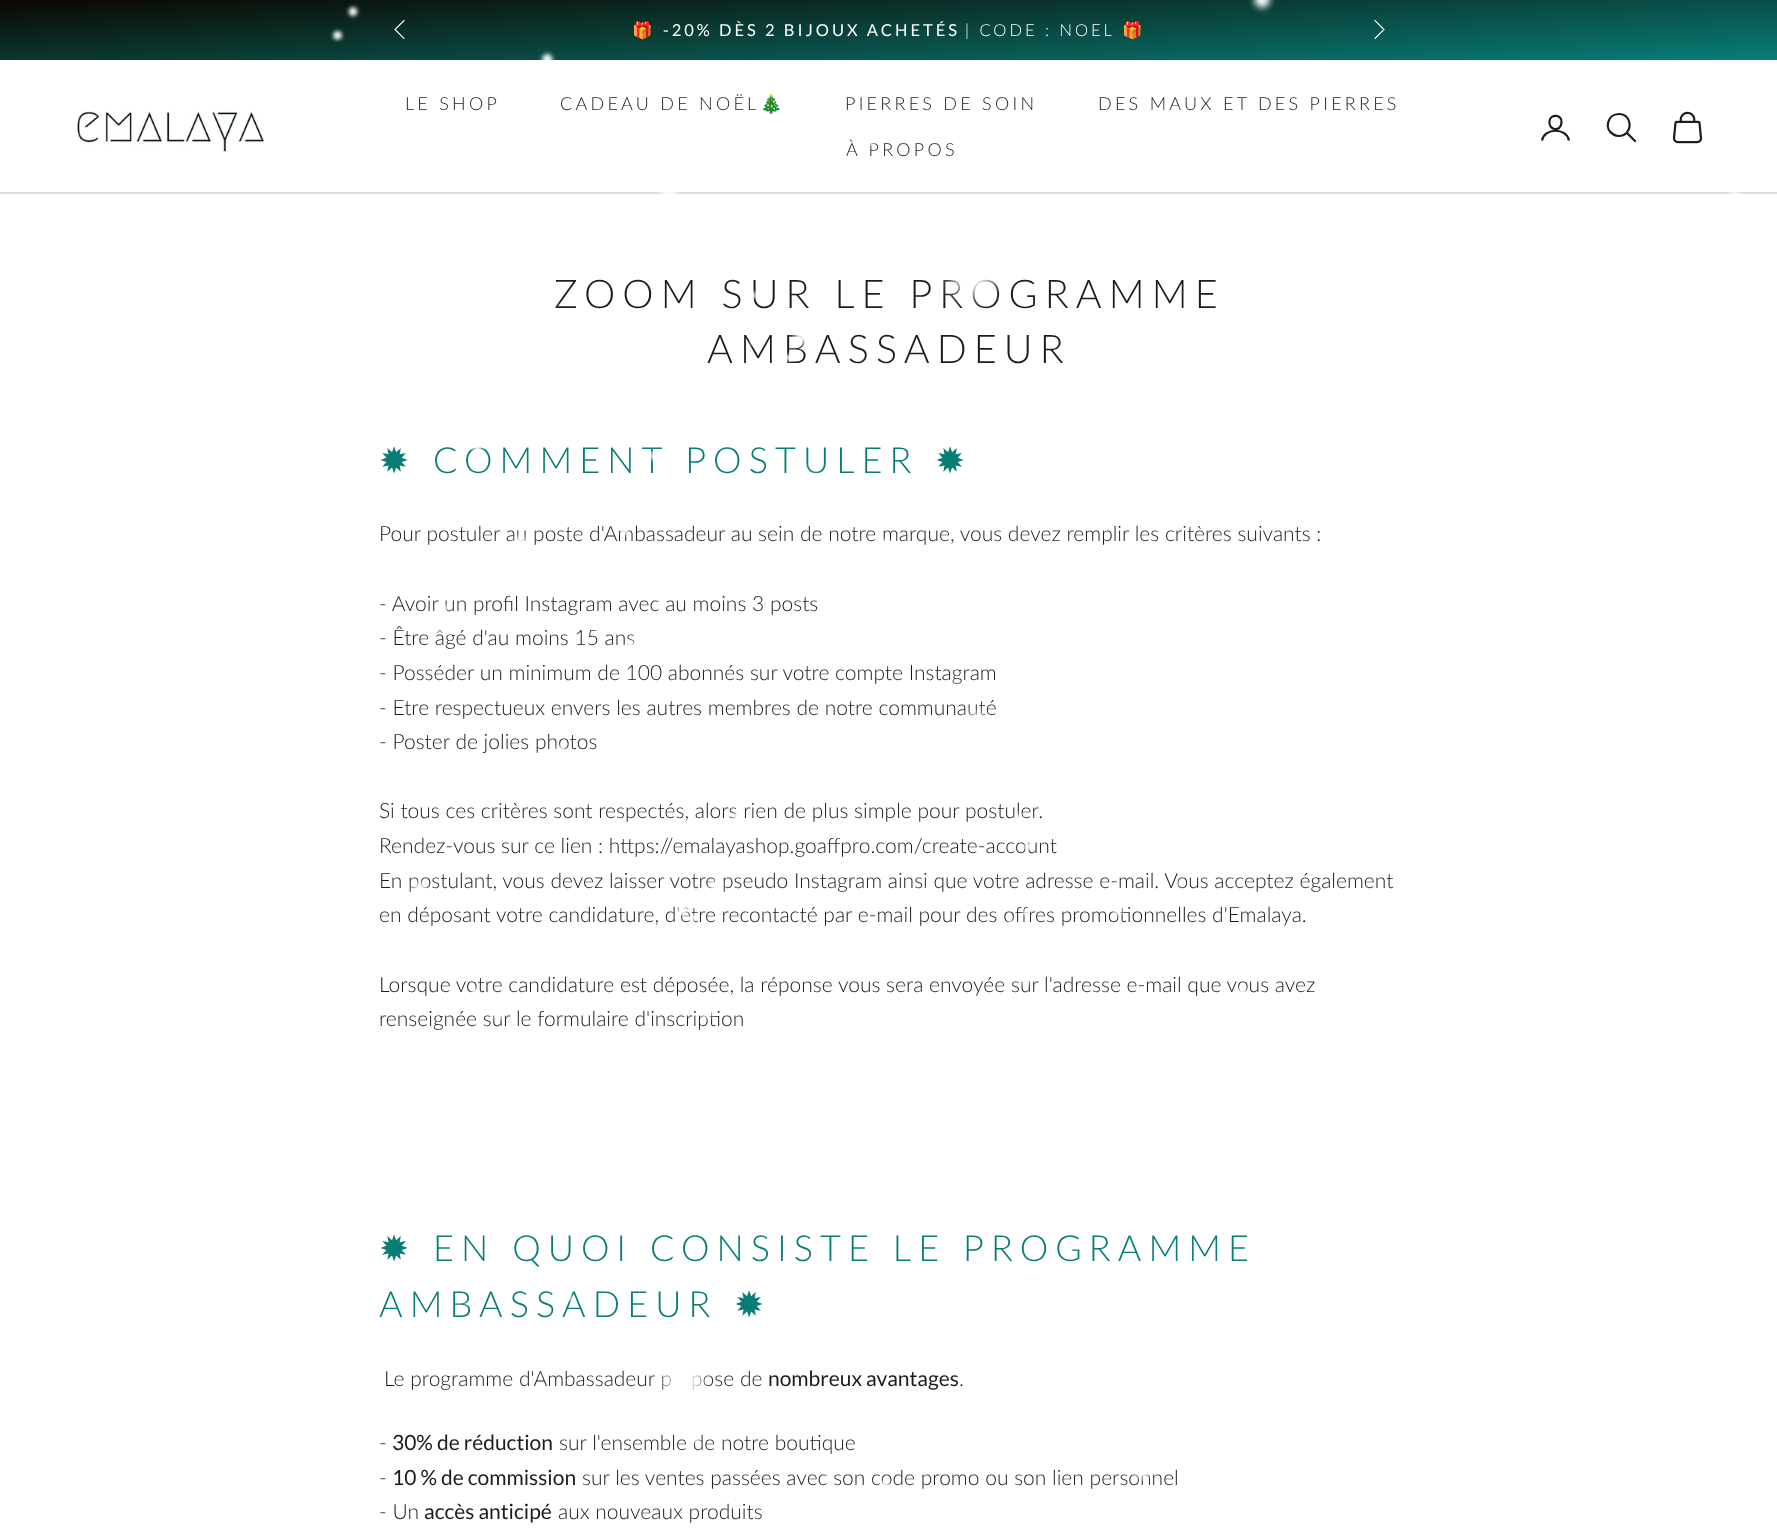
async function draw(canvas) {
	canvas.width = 1777;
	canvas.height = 1529;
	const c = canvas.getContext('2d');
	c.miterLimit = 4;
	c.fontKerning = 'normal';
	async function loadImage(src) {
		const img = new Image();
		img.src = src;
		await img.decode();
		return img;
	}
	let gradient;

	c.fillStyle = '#fff';
	c.fillRect(0, 0, 1777, 1529);
	gradient = c.createLinearGradient(893, 106, 885, -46);
	gradient.addColorStop(0, '#087d76');
	gradient.addColorStop(1, '#0b0801');
	c.fillStyle = gradient;
	c.fillRect(0, 0, 1777, 60);
	c.beginPath();
	c.moveTo(404, 20.5);
	c.lineTo(395, 29.5);
	c.lineTo(404, 38.5);
	c.strokeStyle = '#fff';
	c.lineWidth = 1.1;
	c.lineCap = 'square';
	c.stroke();
	c.letterSpacing = '3px';
	c.font = '16.5px Noto Color Emoji';
	c.fillStyle = '#fff';
	c.fillText('🎁', 632, 36);
	c.font = '16.5px Lato';
	c.fillText('-20% DÈS 2 BIJOUX ACHETÉS', 663, 36);
	c.font = '300 16.5px Lato';
	c.fillText('| CODE : NOEL', 965, 36);
	c.font = '16.5px Noto Color Emoji';
	c.fillText('🎁', 1122, 36);
	c.beginPath();
	c.moveTo(1375, 38.5);
	c.lineTo(1384, 29.5);
	c.lineTo(1375, 20.5);
	c.stroke();
	c.fillStyle = '#ddd';
	c.fillRect(0, 192, 1777, 2);
	c.letterSpacing = '3.25px';
	c.font = '300 18px Lato';
	c.fillStyle = '#1c1c1c';
	c.fillText('LE SHOP', 405, 110);
	c.fillText('CADEAU DE NOËL', 560, 110);
	c.font = '18px Noto Color Emoji';
	c.fillText('🎄', 760, 110);
	c.font = '300 18px Lato';
	for (const [text, x, y] of [
		['PIERRES DE SOIN', 845, 110],
		['DES MAUX ET DES PIERRES', 1098, 110],
		['À PROPOS', 846, 156],
	]) {
		c.fillText(text, x, y);
	}
	c.beginPath();
	c.moveTo(1561.5, 122.5);
	c.bezierCurveTo(1561, 132.5, 1548, 130.5, 1549.5, 121);
	c.bezierCurveTo(1550.5, 113.5, 1562.5, 114.5, 1561.5, 122.5);
	c.closePath();
	c.strokeStyle = '#1c1c1c';
	c.lineWidth = 2.2;
	c.lineCap = 'round';
	c.lineJoin = 'round';
	c.stroke();
	c.beginPath();
	c.moveTo(1542, 140.5);
	c.bezierCurveTo(1544.5, 127.5, 1566.5, 127.5, 1569, 140.5);
	c.lineCap = 'butt';
	c.lineJoin = 'miter';
	c.stroke();
	c.beginPath();
	c.moveTo(1619, 114);
	c.bezierCurveTo(1607.5, 114, 1603.5, 129, 1613.5, 134.5);
	c.bezierCurveTo(1615, 135.5, 1617, 136, 1619, 136);
	c.bezierCurveTo(1633.5, 135.5, 1633, 114, 1619, 114);
	c.closePath();
	c.stroke();
	c.beginPath();
	c.moveTo(1627.5, 133.5);
	c.lineTo(1635, 141);
	c.lineCap = 'round';
	c.stroke();
	c.drawImage(await loadImage('img3.png'), 1672, 111, 31, 33);
	c.letterSpacing = '7.1px';
	c.font = '300 39.5px Lato';
	c.fillText('ZOOM SUR LE PROGRAMME', 554, 308);
	c.fillText('AMBASSADEUR', 707, 363);
	c.font = '36px DejaVu Sans';
	c.fillStyle = '#087d76';
	c.fillText('✹', 379, 473);
	c.font = '300 36px Lato';
	c.fillText('COMMENT POSTULER', 433, 473);
	c.font = '36px DejaVu Sans';
	c.fillText('✹', 935, 473);
	c.letterSpacing = '0px';
	c.font = '300 21px Lato';
	c.fillStyle = '#1c1c1c';
	for (const [text, x, y] of [
		['Pour postuler au poste d\'Ambassadeur au sein de notre marque, vous devez remplir les critères suivants :', 379, 541],
		['- Avoir un profil Instagram avec au moins 3 posts', 379, 611],
		['- Être âgé d\'au moins 15 ans', 379, 645],
		['- Posséder un minimum de 100 abonnés sur votre compte Instagram', 379, 680],
		['- Etre respectueux envers les autres membres de notre communauté', 379, 715],
		['- Poster de jolies photos', 379, 749],
		['Si tous ces critères sont respectés, alors rien de plus simple pour postuler.', 379, 818],
		['Rendez-vous sur ce lien : https://emalayashop.goaffpro.com/create-account', 379, 853],
		['En postulant, vous devez laisser votre pseudo Instagram ainsi que votre adresse e-mail. Vous acceptez également', 379, 888],
		['en déposant votre candidature, d\'être recontacté par e-mail pour des offres promotionnelles d\'Emalaya.', 379, 922],
		['Lorsque votre candidature est déposée, la réponse vous sera envoyée sur l\'adresse e-mail que vous avez', 379, 992],
		['renseignée sur le formulaire d\'inscription', 379, 1026],
	]) {
		c.fillText(text, x, y);
	}
	c.letterSpacing = '7.1px';
	c.font = '36px DejaVu Sans';
	c.fillStyle = '#087d76';
	c.fillText('✹', 379, 1261);
	c.font = '300 36px Lato';
	c.fillText('EN QUOI CONSISTE LE PROGRAMME', 433, 1261);
	c.fillText('AMBASSADEUR', 379, 1317);
	c.font = '36px DejaVu Sans';
	c.fillText('✹', 734, 1317);
	c.letterSpacing = '0px';
	c.font = '300 21px Lato';
	c.fillStyle = '#1c1c1c';
	c.fillText('Le programme d\'Ambassadeur p', 384, 1386);
	c.fillText('pose de', 691, 1386);
	c.font = '21px Lato';
	c.fillText('nombreux avantages', 768, 1386);
	c.font = '300 21px Lato';
	c.fillText('.', 959, 1386);
	c.fillText('-', 379, 1450);
	c.font = '21px Lato';
	c.fillText('30% de réduction', 392, 1450);
	c.font = '300 21px Lato';
	c.fillText('sur l\'ensemble de notre boutique', 559, 1450);
	c.fillText('-', 379, 1485);
	c.font = '21px Lato';
	c.fillText('10 % de commission', 392, 1485);
	c.font = '300 21px Lato';
	c.fillText('sur les ventes passées avec son code promo ou son lien personnel', 582, 1485);
	c.drawImage(await loadImage('img1.png'), 330, 0, 1412, 1486);
	c.drawImage(await loadImage('img2.png'), 77, 110, 187, 43);
	c.fillText('- Un', 379, 1519);
	c.font = '21px Lato';
	c.fillText('accès anticipé', 424, 1519);
	c.font = '300 21px Lato';
	c.fillText('aux nouveaux produits', 558, 1519);
}

draw(document.querySelector('canvas'));
